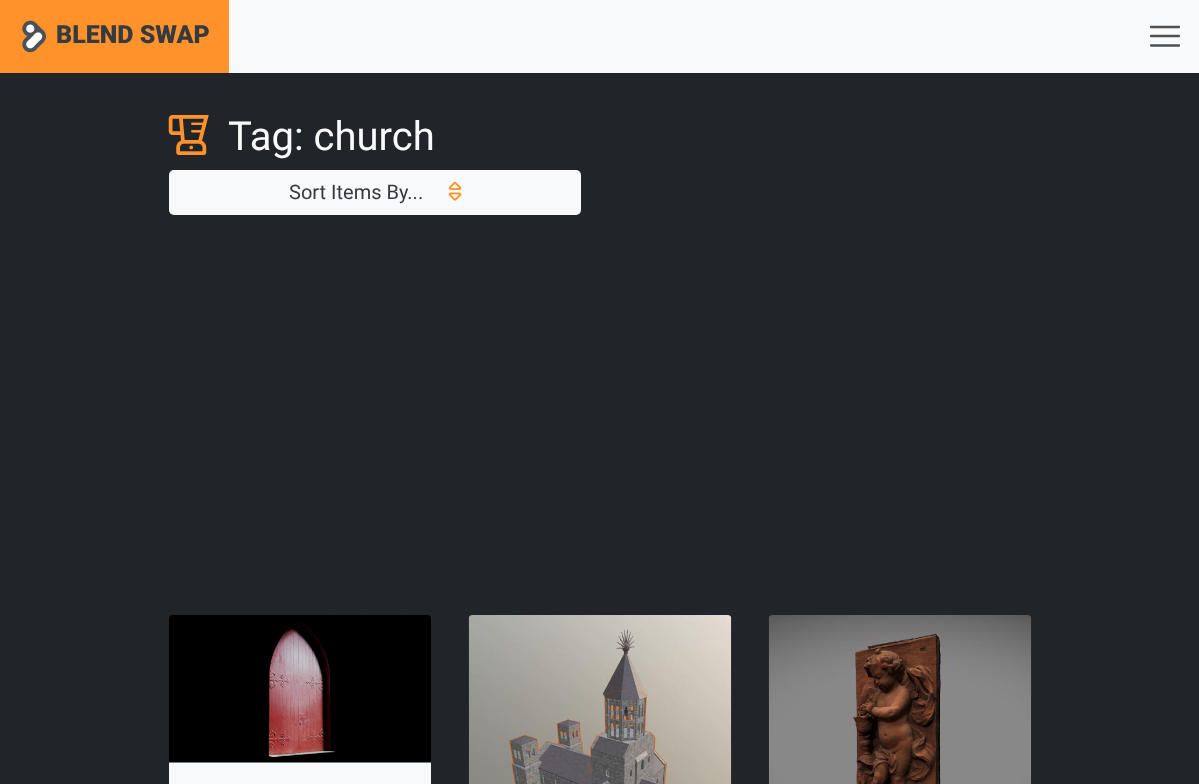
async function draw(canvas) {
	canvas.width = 1199;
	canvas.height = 784;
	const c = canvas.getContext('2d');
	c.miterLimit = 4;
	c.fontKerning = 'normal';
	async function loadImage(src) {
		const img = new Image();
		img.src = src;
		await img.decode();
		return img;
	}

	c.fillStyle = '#212529';
	c.fillRect(0, 0, 1199, 784);
	c.fillStyle = '#f8f9fa';
	c.fillRect(229, 0, 970, 73);
	c.fillStyle = '#ff922b';
	c.fillRect(0, 0, 229, 73);
	c.drawImage(await loadImage('img1.png'), 22, 20, 24, 33);
	c.font = '900 25px Roboto';
	c.fillStyle = '#343a40';
	c.fillText('BLEND SWAP', 56, 43);
	c.beginPath();
	c.moveTo(1151, 27);
	c.lineTo(1179, 27);
	c.moveTo(1151, 36);
	c.lineTo(1179, 36);
	c.moveTo(1151, 45.5);
	c.lineTo(1179, 45.5);
	c.strokeStyle = '#4f4f4f';
	c.lineWidth = 2.3;
	c.lineCap = 'round';
	c.stroke();
	c.drawImage(await loadImage('img2.png'), 168, 115, 41, 40);
	c.font = '40px Roboto';
	c.fillStyle = '#f8f9fa';
	c.fillText('Tag: church', 228, 150);
	c.beginPath();
	c.roundRect(169, 170, 412, 45, 5);
	c.fill();
	c.font = '20px Roboto';
	c.fillStyle = '#343a40';
	c.fillText('Sort Items By...', 289, 199);
	c.drawImage(await loadImage('img3.png'), 448, 181, 14, 20);
	c.fillStyle = '#f8f9fa';
	c.beginPath();
	c.roundRect(169, 615, 262, 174, 5);
	c.fill();
	c.fillStyle = '#80808040';
	c.beginPath();
	c.roundRect(169, 615, 262, 148, [4, 4, 0, 0]);
	c.fill();
	c.beginPath();
	c.roundRect(169, 615, 262, 148, [4, 4, 0, 0]);
	c.fill();
	c.beginPath();
	c.roundRect(169, 615, 262, 148, [4, 4, 0, 0]);
	c.fill();
	c.beginPath();
	c.roundRect(169, 615, 262, 148, [4, 4, 0, 0]);
	c.fill();
	c.drawImage(await loadImage('img4.png'), 169, 615, 262, 148);
	c.drawImage(await loadImage('img5.png'), 468, 615, 264, 169);
	c.drawImage(await loadImage('img6.png'), 768, 615, 264, 169);
}

draw(document.querySelector('canvas'));
